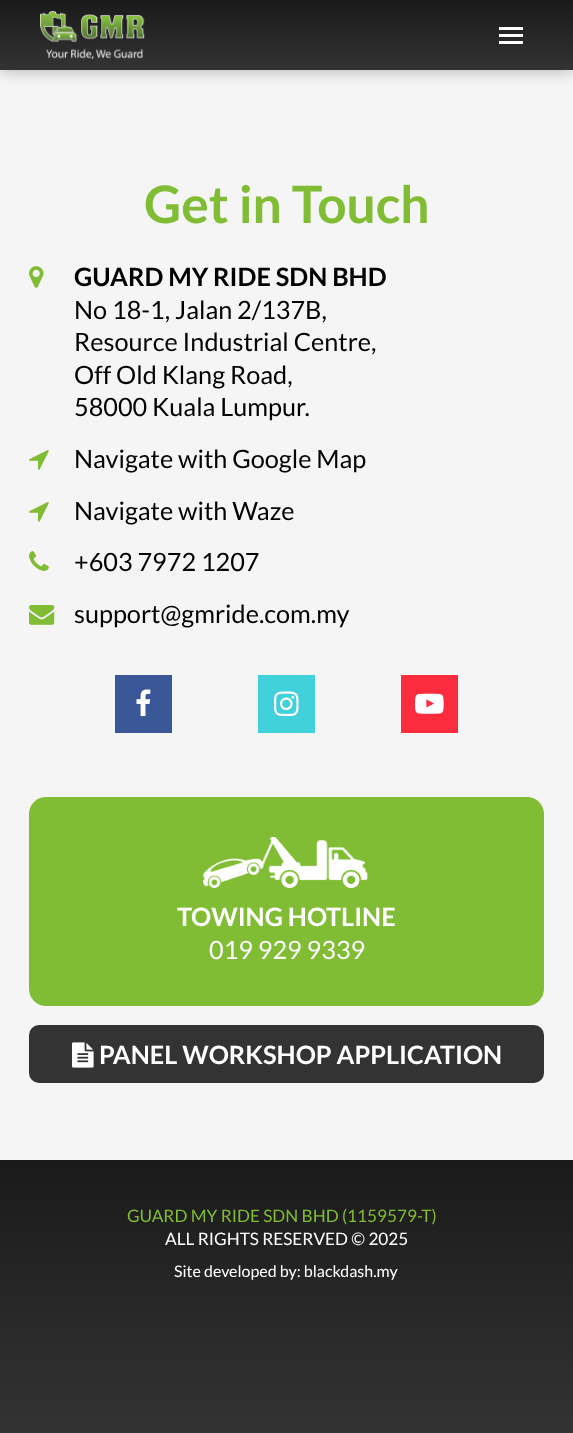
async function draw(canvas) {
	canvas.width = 573;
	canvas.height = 1433;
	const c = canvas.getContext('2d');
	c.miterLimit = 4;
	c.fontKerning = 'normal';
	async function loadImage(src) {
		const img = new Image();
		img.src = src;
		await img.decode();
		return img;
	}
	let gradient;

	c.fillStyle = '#f5f5f5';
	c.fillRect(0, 0, 573, 1433);
	c.fillStyle = '#0000004d';
	c.filter = 'blur(8px)';
	c.beginPath();
	c.rect(0, 0, 573, 70);
	c.fill();
	c.filter = 'none';
	gradient = c.createLinearGradient(287, 0, 287, 70);
	gradient.addColorStop(0, '#1a1a1a');
	gradient.addColorStop(1, '#333');
	c.fillStyle = gradient;
	c.fillRect(0, 0, 573, 70);
	c.drawImage(await loadImage('img1.png'), 40, 11, 105, 48);
	for (const [x, y, w, h, color] of [
		[499, 34, 24, 3, '#fff'],
		[499, 27, 24, 3, '#fff'],
		[499, 41, 24, 3, '#fff'],
	]) {
		c.fillStyle = color;
		c.fillRect(x, y, w, h);
	}
	c.font = 'bold 51.5px Lato';
	c.fillStyle = '#80bd35';
	c.fillText('Get in Touch', 144, 223);
	c.drawImage(await loadImage('img2.png'), 29, 266, 15, 22);
	c.font = 'bold 25.25px Lato';
	c.fillStyle = '#000';
	c.fillText('GUARD MY RIDE SDN BHD', 74, 286);
	c.font = '25.25px Lato';
	for (const [text, x, y] of [
		['No 18-1, Jalan 2/137B,', 74, 319],
		['Resource Industrial Centre,', 74, 351],
		['Off Old Klang Road,', 74, 384],
		['58000 Kuala Lumpur.', 74, 416],
	]) {
		c.fillText(text, x, y);
	}
	c.drawImage(await loadImage('img3.png'), 29, 450, 20, 20);
	c.fillText('Navigate with Google Map', 74, 468);
	c.drawImage(await loadImage('img3.png'), 29, 502, 20, 20);
	c.fillText('Navigate with Waze', 74, 520);
	c.drawImage(await loadImage('img4.png'), 29, 551, 20, 20);
	c.fillText('+603 7972 1207', 74, 571);
	c.drawImage(await loadImage('img5.png'), 29, 605, 26, 20);
	c.fillText('support@gmride.com.my', 74, 623);
	c.fillStyle = '#3a5897';
	c.fillRect(115, 675, 57, 58);
	c.drawImage(await loadImage('img6.png'), 136, 689, 15, 28);
	c.fillStyle = '#41d1da';
	c.fillRect(258, 675, 57, 58);
	c.drawImage(await loadImage('img7.png'), 274, 691, 25, 26);
	c.fillStyle = '#fa2c3d';
	c.fillRect(401, 675, 57, 58);
	c.drawImage(await loadImage('img8.png'), 415, 693, 29, 21);
	c.fillStyle = '#80bd35';
	c.beginPath();
	c.roundRect(29, 797, 515, 209, 17);
	c.fill();
	c.drawImage(await loadImage('img9.png'), 203, 837, 165, 51);
	c.font = 'bold 25.25px Lato';
	c.fillStyle = '#fff';
	c.fillText('TOWING HOTLINE', 177, 926);
	c.font = '25.25px Lato';
	c.fillText('019 929 9339', 209, 959);
	c.fillStyle = '#333';
	c.beginPath();
	c.roundRect(29, 1025, 515, 58, 10);
	c.fill();
	c.drawImage(await loadImage('img10.png'), 72, 1042, 22, 26);
	c.font = 'bold 25.25px Lato';
	c.fillStyle = '#fff';
	c.fillText('PANEL WORKSHOP APPLICATION', 99, 1064);
	gradient = c.createLinearGradient(287, 1160, 287, 1433);
	gradient.addColorStop(0, '#1a1a1a');
	gradient.addColorStop(1, '#333');
	c.fillStyle = gradient;
	c.fillRect(0, 1160, 573, 273);
	c.font = '17.2px Lato';
	c.fillStyle = '#80bd35';
	c.fillText('GUARD MY RIDE SDN BHD (1159579-T)', 127, 1222);
	c.fillStyle = '#fff';
	c.fillText('ALL RIGHTS RESERVED © 2025', 165, 1245);
	c.font = '16px Lato';
	c.fillText('Site developed by: blackdash.my', 174, 1277);
}

draw(document.querySelector('canvas'));
